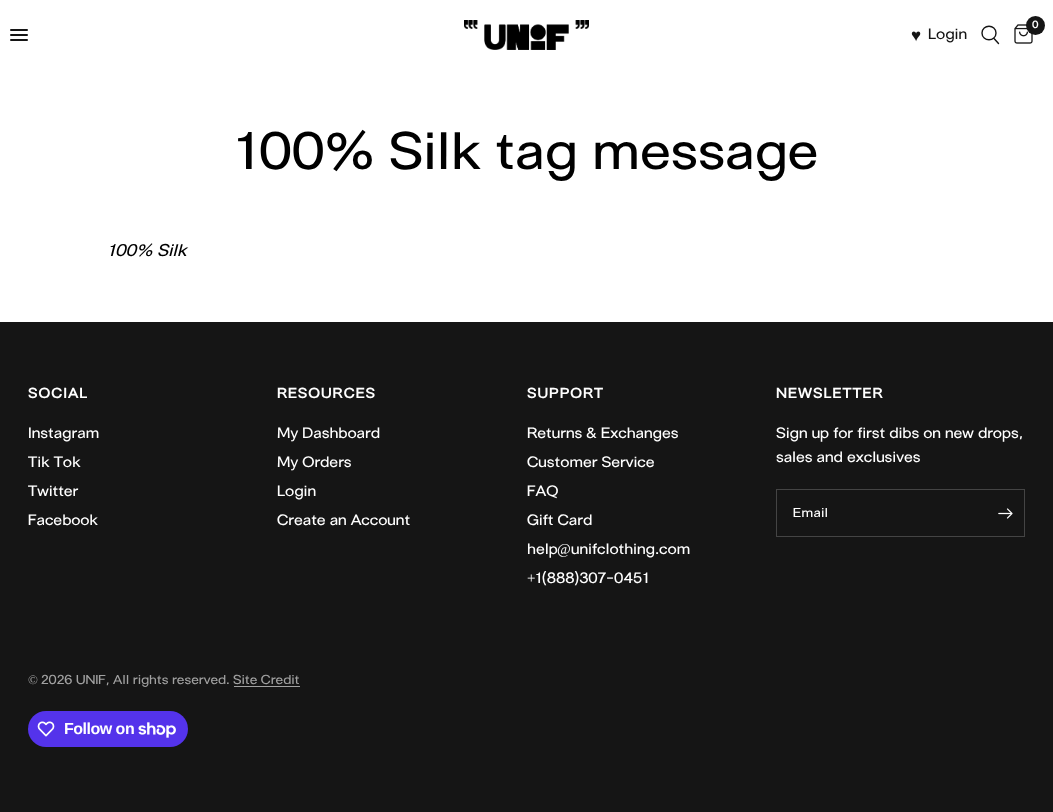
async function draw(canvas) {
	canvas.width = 1053;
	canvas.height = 812;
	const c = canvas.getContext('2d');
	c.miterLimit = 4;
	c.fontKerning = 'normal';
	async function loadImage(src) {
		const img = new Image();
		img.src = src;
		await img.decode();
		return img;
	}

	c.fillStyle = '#fff';
	c.fillRect(0, 0, 1053, 812);
	c.fillStyle = '#151515';
	c.beginPath();
	c.roundRect(10, 29, 18, 2, 1);
	c.fill();
	c.beginPath();
	c.roundRect(10, 34, 18, 2, 1);
	c.fill();
	c.beginPath();
	c.roundRect(10, 39, 18, 2, 1);
	c.fill();
	c.drawImage(await loadImage('img1.png'), 464, 20, 125, 30);
	c.font = '17px Liberation Serif';
	c.fillText('♥︎', 911, 41);
	c.font = '15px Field';
	c.fillText('Login', 928, 39);
	c.beginPath();
	c.moveTo(994, 38.5);
	c.lineTo(998.5, 43.5);
	c.moveTo(996, 33);
	c.bezierCurveTo(996, 42, 982, 42, 982, 33);
	c.bezierCurveTo(982, 24, 996, 24, 996, 33);
	c.closePath();
	c.strokeStyle = '#151515';
	c.lineWidth = 1.4;
	c.lineCap = 'round';
	c.lineJoin = 'round';
	c.stroke();
	c.drawImage(await loadImage('img2.png'), 1014, 24, 19, 20);
	c.beginPath();
	c.arc(1035.5, 25.5, 9.5, 0, 2 * Math.PI);
	c.fill();
	c.font = 'bold 10px Field';
	c.fillStyle = '#fff';
	c.fillText('0', 1032, 28);
	c.font = '52.75px Field';
	c.fillStyle = '#000';
	c.fillText('100% Silk tag message', 234, 169);
	c.font = 'italic 17px Field';
	c.fillText('100% Silk', 107, 256);
	c.fillStyle = '#151515';
	c.fillRect(0, 322, 1053, 490);
	c.letterSpacing = '1.4px';
	c.font = 'bold 14px Field';
	c.fillStyle = '#fff';
	c.fillText('SOCIAL', 28, 398);
	c.letterSpacing = '0px';
	c.font = '15px Field';
	for (const [text, x, y] of [
		['Instagram', 28, 438],
		['Tik Tok', 28, 467],
		['Twitter', 28, 496],
		['Facebook', 28, 525],
	]) {
		c.fillText(text, x, y);
	}
	c.letterSpacing = '1.4px';
	c.font = 'bold 14px Field';
	c.fillText('RESOURCES', 277, 398);
	c.letterSpacing = '0px';
	c.font = '15px Field';
	for (const [text, x, y] of [
		['My Dashboard', 277, 438],
		['My Orders', 277, 467],
		['Login', 277, 496],
		['Create an Account', 277, 525],
	]) {
		c.fillText(text, x, y);
	}
	c.letterSpacing = '1.4px';
	c.font = 'bold 14px Field';
	c.fillText('SUPPORT', 527, 398);
	c.letterSpacing = '0px';
	c.font = '15px Field';
	for (const [text, x, y] of [
		['Returns & Exchanges', 527, 438],
		['Customer Service', 527, 467],
		['FAQ', 527, 496],
		['Gift Card', 527, 525],
		['help', 527, 554],
	]) {
		c.fillText(text, x, y);
	}
	c.font = '15px Liberation Serif';
	c.fillText('@', 557, 554);
	c.font = '15px Field';
	c.fillText('unifclothing.com', 571, 554);
	c.font = '15px Liberation Serif';
	c.fillText('+', 527, 583);
	c.font = '15px Field';
	c.fillText('1(888)307-0451', 535, 583);
	c.letterSpacing = '1.4px';
	c.font = 'bold 14px Field';
	c.fillText('NEWSLETTER', 776, 398);
	c.letterSpacing = '0px';
	c.font = '15px Field';
	c.fillText('Sign up for first dibs on new drops,', 776, 438);
	c.fillText('sales and exclusives', 776, 462);
	c.strokeStyle = '#444';
	c.lineWidth = 1;
	c.lineJoin = 'miter';
	c.strokeRect(776.5, 489.5, 248, 47);
	c.letterSpacing = '0.25px';
	c.font = '13px Field';
	c.fillText('Email', 793, 517);
	c.drawImage(await loadImage('img3.png'), 998, 508, 15, 11);
	c.letterSpacing = '0px';
	c.font = '13px Liberation Serif';
	c.fillStyle = '#a1a1a1';
	c.fillText('©', 28, 684);
	c.font = '13px Field';
	c.fillText('2026 UNIF, All rights reserved. Site Credit', 41, 684);
	c.fillRect(234, 686, 66, 1);
	c.fillStyle = '#5433eb';
	c.beginPath();
	c.roundRect(28, 711, 160, 36, 18);
	c.fill();
	c.drawImage(await loadImage('img4.png'), 37, 721, 18, 16);
	c.letterSpacing = '-0.5px';
	c.font = 'bold 16px Liberation Sans';
	c.fillStyle = '#fff';
	c.fillText('Follow on', 64, 734);
	c.drawImage(await loadImage('img5.png'), 138, 722, 38, 16);
}

draw(document.querySelector('canvas'));
